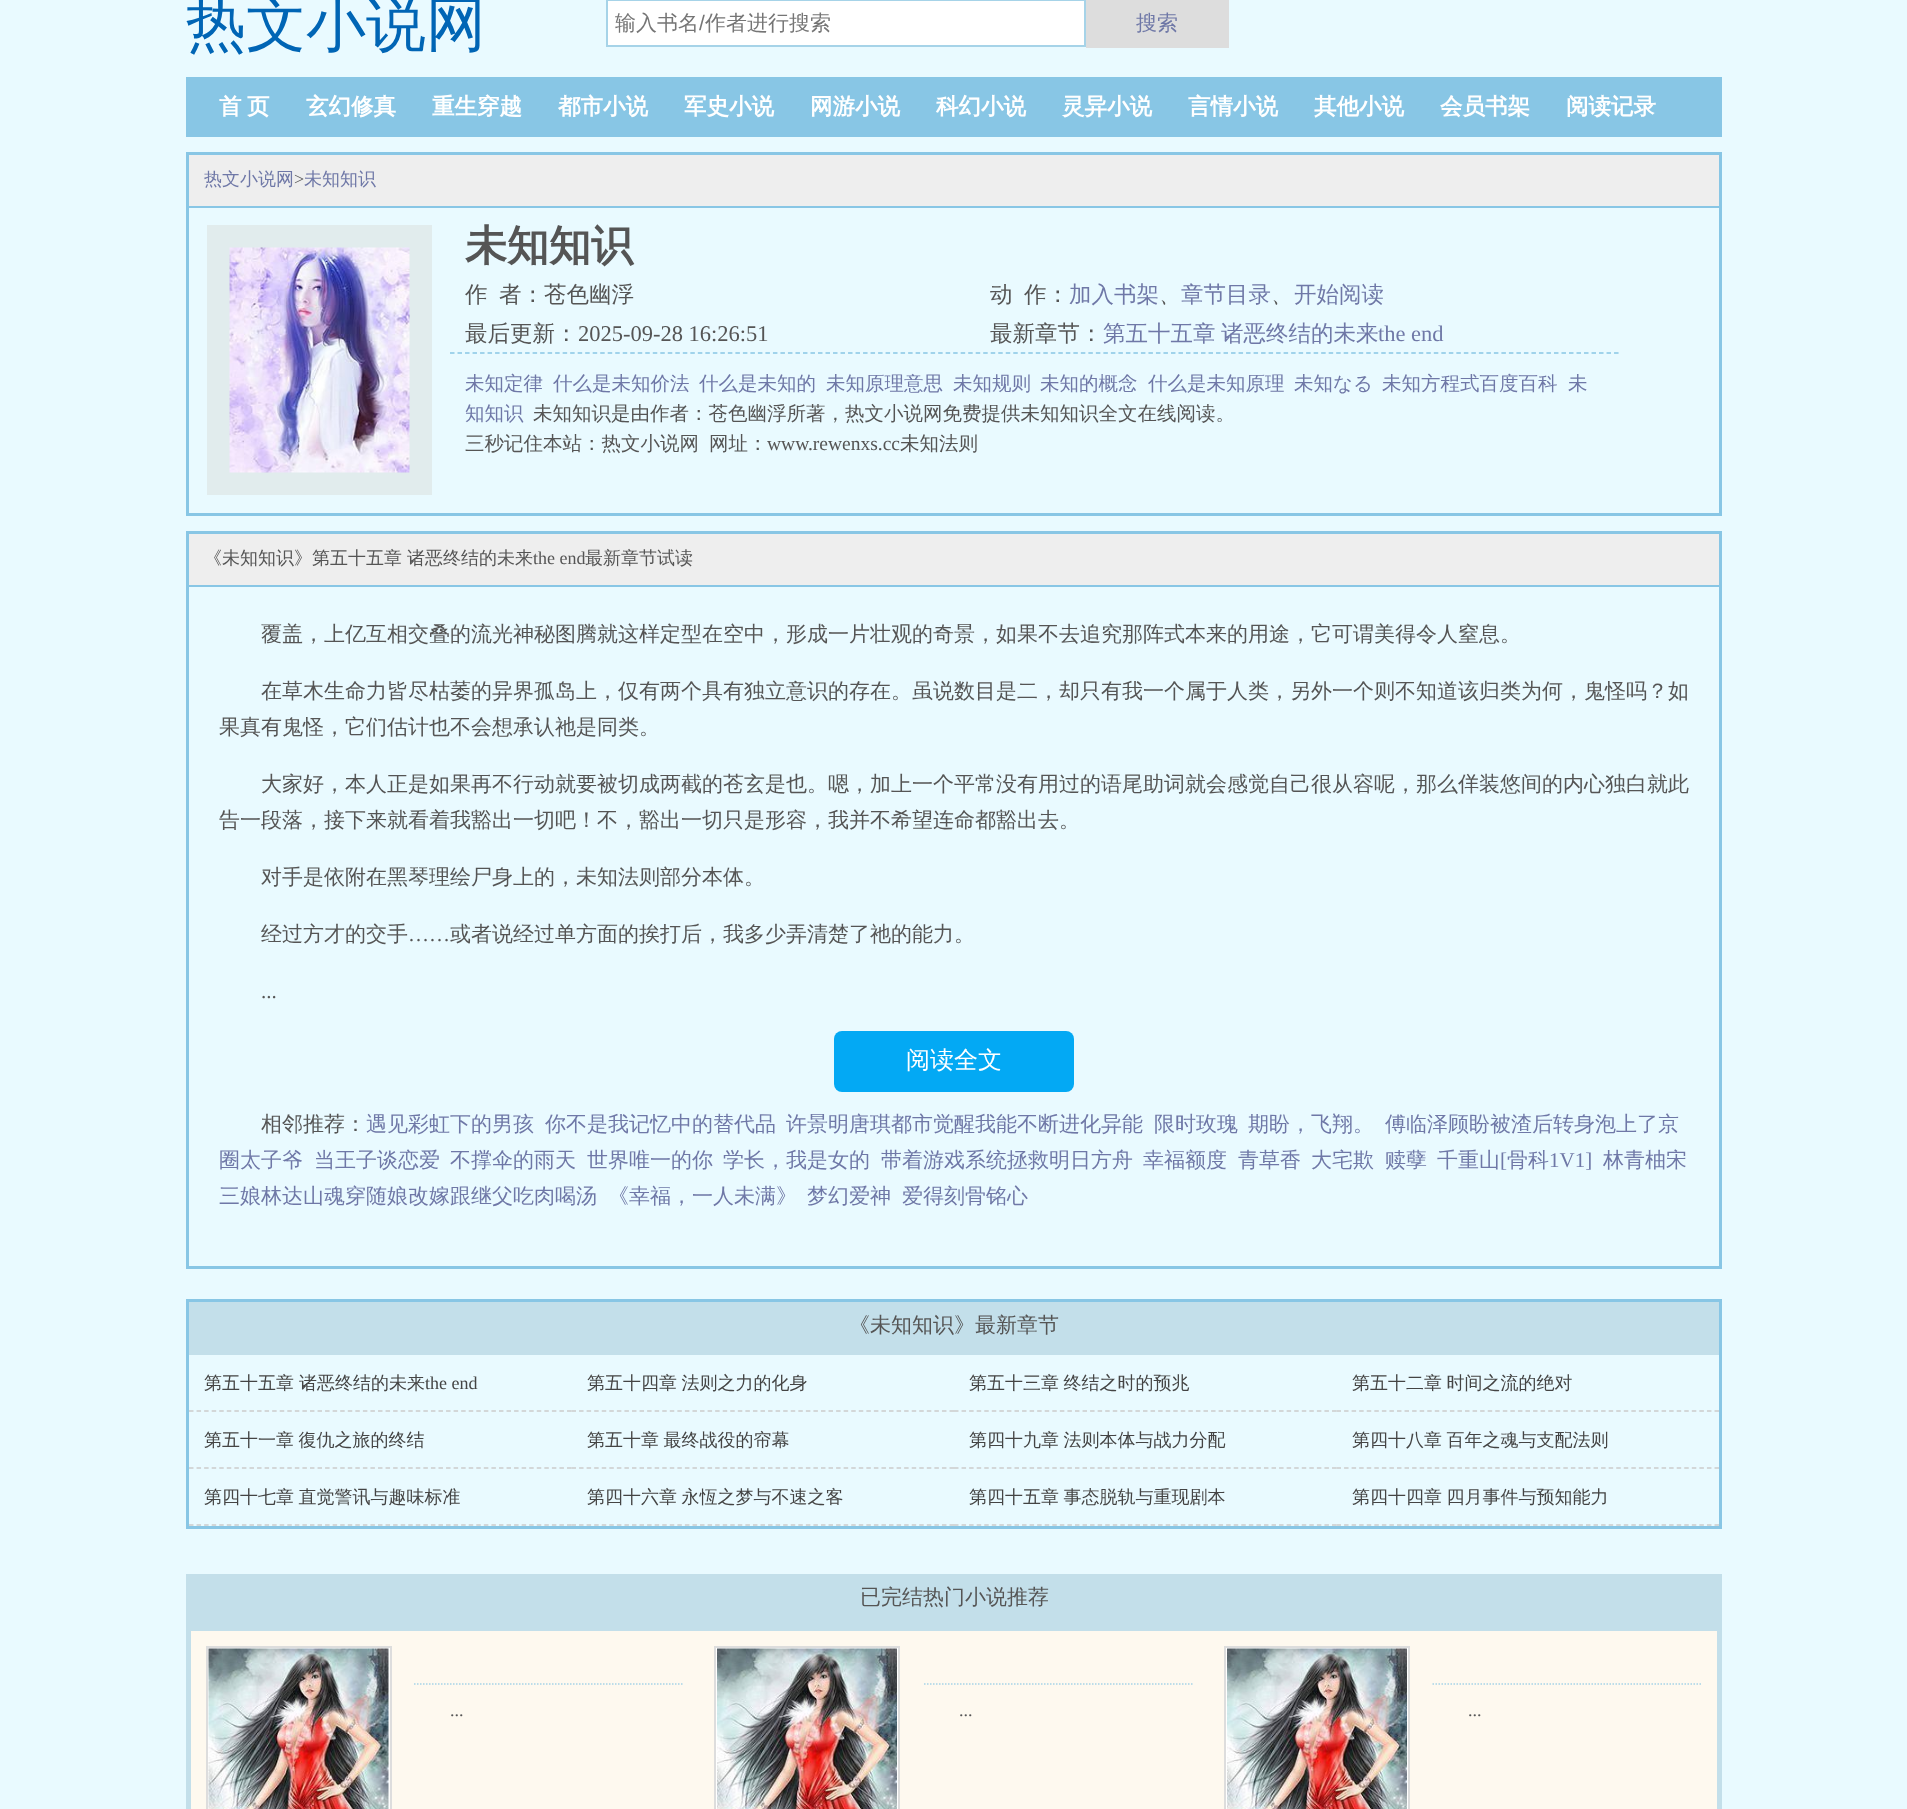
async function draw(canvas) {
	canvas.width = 1907;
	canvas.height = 1809;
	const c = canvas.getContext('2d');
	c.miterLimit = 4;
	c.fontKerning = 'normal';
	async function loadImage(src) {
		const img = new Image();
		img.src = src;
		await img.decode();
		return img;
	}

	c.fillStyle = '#e9faff';
	c.fillRect(0, 0, 1907, 1809);
	c.font = '500 60px WenQuanYi Zen Hei';
	c.fillStyle = '#0065b5';
	c.fillText('热文小说网', 186, 45);
	c.fillStyle = '#fff';
	c.beginPath();
	c.rect(607, 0, 478, 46);
	c.fill();
	c.strokeStyle = '#a6d3e8';
	c.lineWidth = 2;
	c.stroke();
	c.font = '500 21px WenQuanYi Zen Hei';
	c.fillStyle = '#757575';
	c.fillText('输入书名', 615, 30);
	c.font = '21px Liberation Sans';
	c.fillText('/', 699, 30);
	c.font = '500 21px WenQuanYi Zen Hei';
	c.fillText('作者进行搜索', 705, 30);
	c.fillStyle = '#ddd';
	c.fillRect(1086, 0, 143, 48);
	c.fillStyle = '#6f78a7';
	c.fillText('搜索', 1136, 30);
	c.fillStyle = '#88c6e5';
	c.fillRect(186, 77, 1536, 60);
	c.font = 'bold 22.5px WenQuanYi Zen Hei';
	c.fillStyle = '#fff';
	for (const [text, x, y] of [
		['首', 219, 114],
		['页', 247, 114],
		['玄幻修真', 306, 114],
		['重生穿越', 432, 114],
		['都市小说', 558, 114],
		['军史小说', 684, 114],
		['网游小说', 810, 114],
		['科幻小说', 936, 114],
		['灵异小说', 1062, 114],
		['言情小说', 1188, 114],
		['其他小说', 1314, 114],
		['会员书架', 1440, 114],
		['阅读记录', 1566, 114],
	]) {
		c.fillText(text, x, y);
	}
	c.strokeStyle = '#88c6e5';
	c.lineWidth = 3;
	c.strokeRect(187.5, 153.5, 1533, 361);
	c.fillStyle = '#eee';
	c.fillRect(189, 155, 1530, 51);
	c.fillStyle = '#88c6e5';
	c.fillRect(189, 206, 1530, 2);
	c.font = '500 18px WenQuanYi Zen Hei';
	c.fillStyle = '#6f78a7';
	c.fillText('热文小说网', 204, 185);
	c.font = '18px Liberation Serif';
	c.fillStyle = '#555';
	c.fillText('>', 294, 185);
	c.font = '500 18px WenQuanYi Zen Hei';
	c.fillStyle = '#6f78a7';
	c.fillText('未知知识', 304, 185);
	c.fillStyle = '#e1eced';
	c.fillRect(207, 225, 225, 270);
	c.drawImage(await loadImage('img1.png'), 229, 247, 181, 226);
	c.font = 'bold 42px WenQuanYi Zen Hei';
	c.fillStyle = '#555';
	c.fillText('未知知识', 465, 260);
	c.font = '500 22.5px WenQuanYi Zen Hei';
	for (const [text, x, y] of [
		['作', 465, 302],
		['者：苍色幽浮', 499, 302],
		['动', 990, 302],
		['作：', 1024, 302],
	]) {
		c.fillText(text, x, y);
	}
	c.fillStyle = '#6f78a7';
	c.fillText('加入书架', 1069, 302);
	c.font = 'italic 500 22.5px WenQuanYi Zen Hei';
	c.fillStyle = '#555';
	c.fillText('、', 1159, 302);
	c.font = '500 22.5px WenQuanYi Zen Hei';
	c.fillStyle = '#6f78a7';
	c.fillText('章节目录', 1181, 302);
	c.font = 'italic 500 22.5px WenQuanYi Zen Hei';
	c.fillStyle = '#555';
	c.fillText('、', 1271, 302);
	c.font = '500 22.5px WenQuanYi Zen Hei';
	c.fillStyle = '#6f78a7';
	c.fillText('开始阅读', 1294, 302);
	c.fillStyle = '#555';
	c.fillText('最后更新：', 465, 341);
	c.font = '22.5px Liberation Serif';
	c.fillText('2025-09-28 16:26:51', 578, 341);
	c.font = '500 22.5px WenQuanYi Zen Hei';
	c.fillText('最新章节：', 990, 341);
	c.fillStyle = '#6f78a7';
	c.fillText('第五十五章', 1103, 341);
	c.fillText('诸恶终结的未来', 1221, 341);
	c.font = '22.5px Liberation Serif';
	c.fillText('the end', 1378, 341);
	c.beginPath();
	c.moveTo(450, 353);
	c.lineTo(1620, 353);
	c.lineWidth = 1.5;
	c.setLineDash([4.5, 3.01]);
	c.stroke();
	c.font = '500 19.5px WenQuanYi Zen Hei';
	for (const [text, x, y] of [
		['未知定律', 465, 390],
		['什么是未知价法', 553, 390],
		['什么是未知的', 699, 390],
		['未知原理意思', 826, 390],
		['未知规则', 953, 390],
		['未知的概念', 1040, 390],
		['什么是未知原理', 1148, 390],
		['未知なる', 1294, 390],
		['未知方程式百度百科', 1382, 390],
		['未', 1568, 390],
		['知知识', 465, 420],
	]) {
		c.fillText(text, x, y);
	}
	c.fillStyle = '#555';
	for (const [text, x, y] of [
		['未知知识是由作者：苍色幽浮所著，热文小说网免费提供未知知识全文在线阅读。', 533, 420],
		['三秒记住本站：热文小说网', 465, 450],
		['网址：', 709, 450],
	]) {
		c.fillText(text, x, y);
	}
	c.font = '19.5px Liberation Serif';
	c.fillText('www.rewenxs.cc', 767, 450);
	c.font = '500 19.5px WenQuanYi Zen Hei';
	c.fillText('未知法则', 900, 450);
	c.lineWidth = 3;
	c.setLineDash([]);
	c.strokeRect(187.5, 532.5, 1533, 735);
	c.fillStyle = '#eee';
	c.fillRect(189, 534, 1530, 51);
	c.fillStyle = '#88c6e5';
	c.fillRect(189, 585, 1530, 2);
	c.font = '500 18px WenQuanYi Zen Hei';
	c.fillStyle = '#555';
	c.fillText('《未知知识》第五十五章', 204, 564);
	c.fillText('诸恶终结的未来', 407, 564);
	c.font = '18px Liberation Serif';
	c.fillText('the end', 533, 564);
	c.font = '500 18px WenQuanYi Zen Hei';
	c.fillText('最新章节试读', 585, 564);
	c.font = '500 21px WenQuanYi Zen Hei';
	for (const [text, x, y] of [
		['覆盖，上亿互相交叠的流光神秘图腾就这样定型在空中，形成一片壮观的奇景，如果不去追究那阵式本来的用途，它可谓美得令人窒息。', 261, 641],
		['在草木生命力皆尽枯萎的异界孤岛上，仅有两个具有独立意识的存在。虽说数目是二，却只有我一个属于人类，另外一个则不知道该归类为何，鬼怪吗？如', 261, 698],
		['果真有鬼怪，它们估计也不会想承认祂是同类。', 219, 734],
		['大家好，本人正是如果再不行动就要被切成两截的苍玄是也。嗯，加上一个平常没有用过的语尾助词就会感觉自己很从容呢，那么佯装悠间的内心独白就此', 261, 791],
		['告一段落，接下来就看着我豁出一切吧！不，豁出一切只是形容，我并不希望连命都豁出去。', 219, 827],
		['对手是依附在黑琴理绘尸身上的，未知法则部分本体。', 261, 884],
		['经过方才的交手', 261, 941],
	]) {
		c.fillText(text, x, y);
	}
	c.font = '21px Liberation Serif';
	c.fillText('……', 408, 941);
	c.font = '500 21px WenQuanYi Zen Hei';
	c.fillText('或者说经过单方面的挨打后，我多少弄清楚了祂的能力。', 450, 941);
	c.font = '21px Liberation Serif';
	c.fillText('...', 261, 998);
	c.fillStyle = '#03a9f4';
	c.beginPath();
	c.roundRect(834, 1031, 240, 61, 8);
	c.fill();
	c.font = '500 24px WenQuanYi Zen Hei';
	c.fillStyle = '#fff';
	c.fillText('阅读全文', 906, 1068);
	c.font = '500 21px WenQuanYi Zen Hei';
	c.fillStyle = '#555';
	c.fillText('相邻推荐：', 261, 1131);
	c.fillStyle = '#6f78a7';
	for (const [text, x, y] of [
		['遇见彩虹下的男孩', 366, 1131],
		['你不是我记忆中的替代品', 545, 1131],
		['许景明唐琪都市觉醒我能不断进化异能', 786, 1131],
		['限时玫瑰', 1154, 1131],
		['期盼，飞翔。', 1248, 1131],
		['傅临泽顾盼被渣后转身泡上了京', 1385, 1131],
		['圈太子爷', 219, 1167],
		['当王子谈恋爱', 314, 1167],
		['不撑伞的雨天', 450, 1167],
		['世界唯一的你', 587, 1167],
		['学长，我是女的', 723, 1167],
		['带着游戏系统拯救明日方舟', 881, 1167],
		['幸福额度', 1143, 1167],
		['青草香', 1238, 1167],
		['大宅欺', 1311, 1167],
		['赎孽', 1385, 1167],
		['千重山', 1437, 1167],
	]) {
		c.fillText(text, x, y);
	}
	c.font = '21px Liberation Serif';
	c.fillText('[', 1500, 1167);
	c.font = '500 21px WenQuanYi Zen Hei';
	c.fillText('骨科', 1507, 1167);
	c.font = '21px Liberation Serif';
	c.fillText('1V1]', 1549, 1167);
	c.font = '500 21px WenQuanYi Zen Hei';
	for (const [text, x, y] of [
		['林青柚宋', 1603, 1167],
		['三娘林达山魂穿随娘改嫁跟继父吃肉喝汤', 219, 1203],
		['《幸福，一人未满》', 608, 1203],
		['梦幻爱神', 807, 1203],
		['爱得刻骨铭心', 902, 1203],
	]) {
		c.fillText(text, x, y);
	}
	c.strokeRect(187.5, 1300.5, 1533, 227);
	c.fillStyle = '#c3dfea';
	c.fillRect(189, 1302, 1530, 53);
	c.fillStyle = '#555';
	c.fillText('《未知知识》最新章节', 849, 1332);
	c.beginPath();
	c.moveTo(189, 1411);
	c.lineTo(571.5, 1411);
	c.strokeStyle = '#ccc';
	c.lineWidth = 1.5;
	c.setLineDash([4.5, 3.06]);
	c.stroke();
	c.font = '500 18px WenQuanYi Zen Hei';
	c.fillStyle = '#444';
	c.fillText('第五十五章', 204, 1389);
	c.fillText('诸恶终结的未来', 299, 1389);
	c.font = '18px Liberation Serif';
	c.fillText('the end', 425, 1389);
	c.beginPath();
	c.moveTo(571.5, 1411);
	c.lineTo(954, 1411);
	c.stroke();
	c.wordSpacing = '-1px';
	c.font = '500 18px WenQuanYi Zen Hei';
	c.fillText('第五十四章 法则之力的化身', 587, 1389);
	c.beginPath();
	c.moveTo(954, 1411);
	c.lineTo(1336.5, 1411);
	c.stroke();
	c.fillText('第五十三章 终结之时的预兆', 969, 1389);
	c.beginPath();
	c.moveTo(1336.5, 1411);
	c.lineTo(1719, 1411);
	c.stroke();
	c.fillText('第五十二章 时间之流的绝对', 1352, 1389);
	c.beginPath();
	c.moveTo(189, 1468);
	c.lineTo(571.5, 1468);
	c.stroke();
	c.fillText('第五十一章 復仇之旅的终结', 204, 1446);
	c.beginPath();
	c.moveTo(571.5, 1468);
	c.lineTo(954, 1468);
	c.stroke();
	c.fillText('第五十章 最终战役的帘幕', 587, 1446);
	c.beginPath();
	c.moveTo(954, 1468);
	c.lineTo(1336.5, 1468);
	c.stroke();
	c.fillText('第四十九章 法则本体与战力分配', 969, 1446);
	c.beginPath();
	c.moveTo(1336.5, 1468);
	c.lineTo(1719, 1468);
	c.stroke();
	c.fillText('第四十八章 百年之魂与支配法则', 1352, 1446);
	c.beginPath();
	c.moveTo(189, 1525);
	c.lineTo(571.5, 1525);
	c.stroke();
	c.fillText('第四十七章 直觉警讯与趣味标准', 204, 1503);
	c.beginPath();
	c.moveTo(571.5, 1525);
	c.lineTo(954, 1525);
	c.stroke();
	c.fillText('第四十六章 永恆之梦与不速之客', 587, 1503);
	c.beginPath();
	c.moveTo(954, 1525);
	c.lineTo(1336.5, 1525);
	c.stroke();
	c.fillText('第四十五章 事态脱轨与重现剧本', 969, 1503);
	c.beginPath();
	c.moveTo(1336.5, 1525);
	c.lineTo(1719, 1525);
	c.stroke();
	c.fillText('第四十四章 四月事件与预知能力', 1352, 1503);
	c.fillStyle = '#c3dfea';
	c.fillRect(186, 1574, 1536, 52);
	c.wordSpacing = '0px';
	c.font = '500 21px WenQuanYi Zen Hei';
	c.fillStyle = '#555';
	c.fillText('已完结热门小说推荐', 860, 1604);
	c.fillStyle = '#fef9ef';
	c.beginPath();
	c.rect(188.5, 1628.5, 1531, 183);
	c.fill();
	c.strokeStyle = '#c3dfea';
	c.lineWidth = 5;
	c.setLineDash([]);
	c.stroke();
	c.fillStyle = '#fff';
	c.beginPath();
	c.rect(207, 1647, 184, 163);
	c.fill();
	c.strokeStyle = '#ddd';
	c.lineWidth = 2;
	c.stroke();
	c.drawImage(await loadImage('img2.png'), 208, 1648, 181, 161);
	c.beginPath();
	c.moveTo(414, 1684);
	c.lineTo(684, 1684);
	c.strokeStyle = '#a6d3e8';
	c.lineWidth = 1.5;
	c.setLineDash([1.5, 1.5]);
	c.stroke();
	c.font = '18px Liberation Serif';
	c.fillStyle = '#555';
	c.fillText('...', 450, 1716);
	c.fillStyle = '#fff';
	c.beginPath();
	c.rect(715, 1647, 184, 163);
	c.fill();
	c.strokeStyle = '#ddd';
	c.lineWidth = 2;
	c.setLineDash([]);
	c.stroke();
	c.drawImage(await loadImage('img3.png'), 717, 1648, 180, 161);
	c.beginPath();
	c.moveTo(924, 1684);
	c.lineTo(1194, 1684);
	c.strokeStyle = '#a6d3e8';
	c.lineWidth = 1.5;
	c.setLineDash([1.5, 1.5]);
	c.stroke();
	c.fillStyle = '#555';
	c.fillText('...', 959, 1716);
	c.fillStyle = '#fff';
	c.beginPath();
	c.rect(1225, 1647, 184, 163);
	c.fill();
	c.strokeStyle = '#ddd';
	c.lineWidth = 2;
	c.setLineDash([]);
	c.stroke();
	c.drawImage(await loadImage('img3.png'), 1227, 1648, 180, 161);
	c.beginPath();
	c.moveTo(1432.5, 1684);
	c.lineTo(1702.5, 1684);
	c.strokeStyle = '#a6d3e8';
	c.lineWidth = 1.5;
	c.setLineDash([1.5, 1.5]);
	c.stroke();
	c.fillStyle = '#555';
	c.fillText('...', 1468, 1716);
}

draw(document.querySelector('canvas'));
